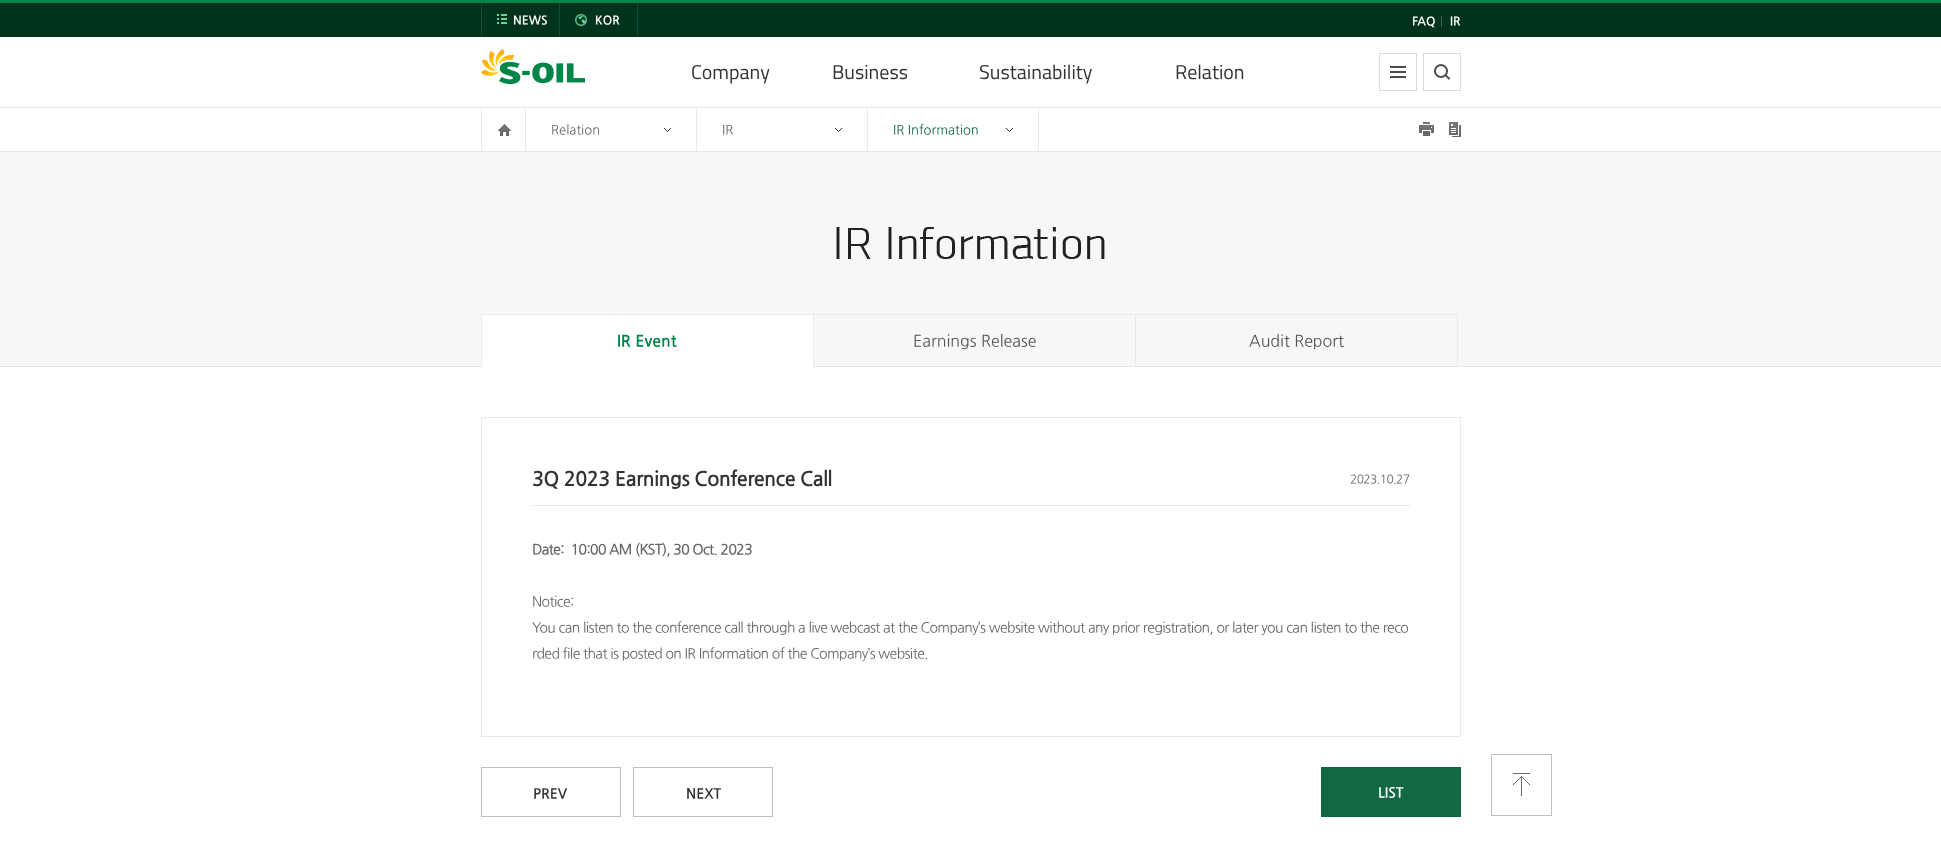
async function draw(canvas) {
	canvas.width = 1941;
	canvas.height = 846;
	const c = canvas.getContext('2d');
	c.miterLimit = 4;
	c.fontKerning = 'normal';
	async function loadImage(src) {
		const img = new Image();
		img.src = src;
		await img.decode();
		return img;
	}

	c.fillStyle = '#f7f7f7';
	c.fillRect(0, 0, 1941, 846);
	for (const [x, y, w, h, color] of [
		[0, 0, 1941, 3, '#008549'],
		[0, 3, 1941, 34, '#00331c'],
		[481, 3, 1, 34, '#0e4b2f'],
		[559, 3, 1, 34, '#0e4b2f'],
	]) {
		c.fillStyle = color;
		c.fillRect(x, y, w, h);
	}
	c.drawImage(await loadImage('img1.png'), 497, 14, 10, 10);
	c.font = 'bold 12px "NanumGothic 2"';
	c.fillStyle = '#fff';
	c.fillText('NEWS', 513, 24);
	c.fillStyle = '#0e4b2f';
	c.fillRect(637, 3, 1, 34);
	c.drawImage(await loadImage('img2.png'), 575, 14, 12, 12);
	c.fillStyle = '#fff';
	c.fillText('KOR', 595, 24);
	c.fillText('FAQ', 1412, 25);
	c.letterSpacing = '-0.6px';
	c.font = '12px NanumGothic';
	c.fillStyle = '#556f63';
	c.fillText('|', 1440, 25);
	c.letterSpacing = '0px';
	c.font = 'bold 12px "NanumGothic 2"';
	c.fillStyle = '#fff';
	c.fillText('IR', 1450, 25);
	c.fillRect(0, 37, 1941, 70);
	c.drawImage(await loadImage('img3.png'), 481, 49, 104, 35);
	c.font = '20px Titillium Web';
	c.fillStyle = '#333';
	for (const [text, x, y] of [
		['Company', 691, 79],
		['Business', 832, 79],
		['Sustainability', 979, 79],
		['Relation', 1175, 79],
	]) {
		c.fillText(text, x, y);
	}
	c.drawImage(await loadImage('img4.png'), 1379, 53, 38, 38);
	c.drawImage(await loadImage('img5.png'), 1423, 53, 38, 38);
	for (const [x, y, w, h, color] of [
		[0, 108, 1941, 43, '#fff'],
		[0, 107, 1941, 1, '#e9e9e9'],
		[0, 151, 1941, 1, '#e9e9e9'],
		[525, 108, 1, 43, '#e9e9e9'],
		[481, 108, 1, 43, '#e9e9e9'],
	]) {
		c.fillStyle = color;
		c.fillRect(x, y, w, h);
	}
	c.drawImage(await loadImage('img6.png'), 498, 124, 13, 12);
	c.fillRect(696, 108, 1, 43);
	c.drawImage(await loadImage('img7.png'), 664, 128, 7, 4);
	c.font = '13px NanumGothic';
	c.fillStyle = '#666';
	c.fillText('Relation', 551, 134);
	c.fillStyle = '#e9e9e9';
	c.fillRect(867, 108, 1, 43);
	c.drawImage(await loadImage('img7.png'), 835, 128, 7, 4);
	c.fillStyle = '#666';
	c.fillText('IR', 722, 134);
	c.fillStyle = '#e9e9e9';
	c.fillRect(1038, 108, 1, 43);
	c.drawImage(await loadImage('img7.png'), 1006, 128, 7, 4);
	c.fillStyle = '#136844';
	c.fillText('IR Information', 893, 134);
	c.drawImage(await loadImage('img8.png'), 1419, 122, 15, 14);
	c.drawImage(await loadImage('img9.png'), 1449, 122, 12, 15);
	c.fillStyle = '#e6e6e6';
	c.fillRect(0, 366, 1941, 1);
	c.drawImage(await loadImage('img10.png'), 836, 227, 269, 32);
	for (const [x, y, w, h, color] of [
		[482, 315, 331, 52, '#fff'],
		[481, 314, 655, 1, '#e9e9e9'],
		[813, 314, 1, 53, '#e9e9e9'],
		[481, 314, 1, 53, '#e9e9e9'],
	]) {
		c.fillStyle = color;
		c.fillRect(x, y, w, h);
	}
	c.font = 'bold 16px "NanumGothic 2"';
	c.fillStyle = '#00854a';
	c.fillText('IR Event', 617, 346);
	c.fillStyle = '#e9e9e9';
	c.fillRect(1135, 314, 1, 53);
	c.font = '16px NanumGothic';
	c.fillStyle = '#555';
	c.fillText('Earnings Release', 913, 346);
	c.fillStyle = '#e9e9e9';
	c.fillRect(1135, 314, 323, 1);
	c.fillRect(1457, 314, 1, 53);
	c.fillStyle = '#555';
	c.fillText('Audit Report', 1249, 346);
	c.fillStyle = '#fff';
	c.fillRect(0, 367, 1941, 479);
	c.strokeStyle = '#e9e9e9';
	c.strokeRect(481.5, 417.5, 979, 319);
	c.fillStyle = '#e6e6e6';
	c.fillRect(532, 505, 878, 1);
	c.letterSpacing = '-0.6px';
	c.font = 'bold 20px "NanumGothic 2"';
	c.fillStyle = '#333';
	c.fillText('3Q 2023 Earnings Conference Call', 532, 485);
	c.font = '12px NanumGothic';
	c.fillStyle = '#666';
	c.fillText('2023.10.27', 1350, 483);
	c.font = 'bold 14px NanumGothic';
	c.fillText('Date:  10:00 AM (KST), 30 Oct. 2023', 532, 554);
	c.font = '14px NanumGothic';
	for (const [text, x, y] of [
		['Notice:', 532, 606],
		['You can listen to the conference call through a live webcast at the Company’s website without any prior registration, or later you can listen to the reco', 532, 632],
		['rded file that is posted on IR Information of the Company’s website.', 532, 658],
	]) {
		c.fillText(text, x, y);
	}
	c.strokeStyle = '#bfbfbf';
	c.strokeRect(481.5, 767.5, 139, 49);
	c.letterSpacing = '0px';
	c.font = 'bold 14px "NanumGothic 2"';
	c.fillStyle = '#333';
	c.fillText('PREV', 533, 798);
	c.strokeRect(633.5, 767.5, 139, 49);
	c.fillText('NEXT', 686, 798);
	c.fillStyle = '#136844';
	c.fillRect(1321, 767, 140, 50);
	c.fillStyle = '#fff';
	c.fillText('LIST', 1378, 797);
	c.drawImage(await loadImage('img11.png'), 1513, 773, 17, 23);
	c.strokeRect(1491.5, 754.5, 60, 61);
}

draw(document.querySelector('canvas'));
